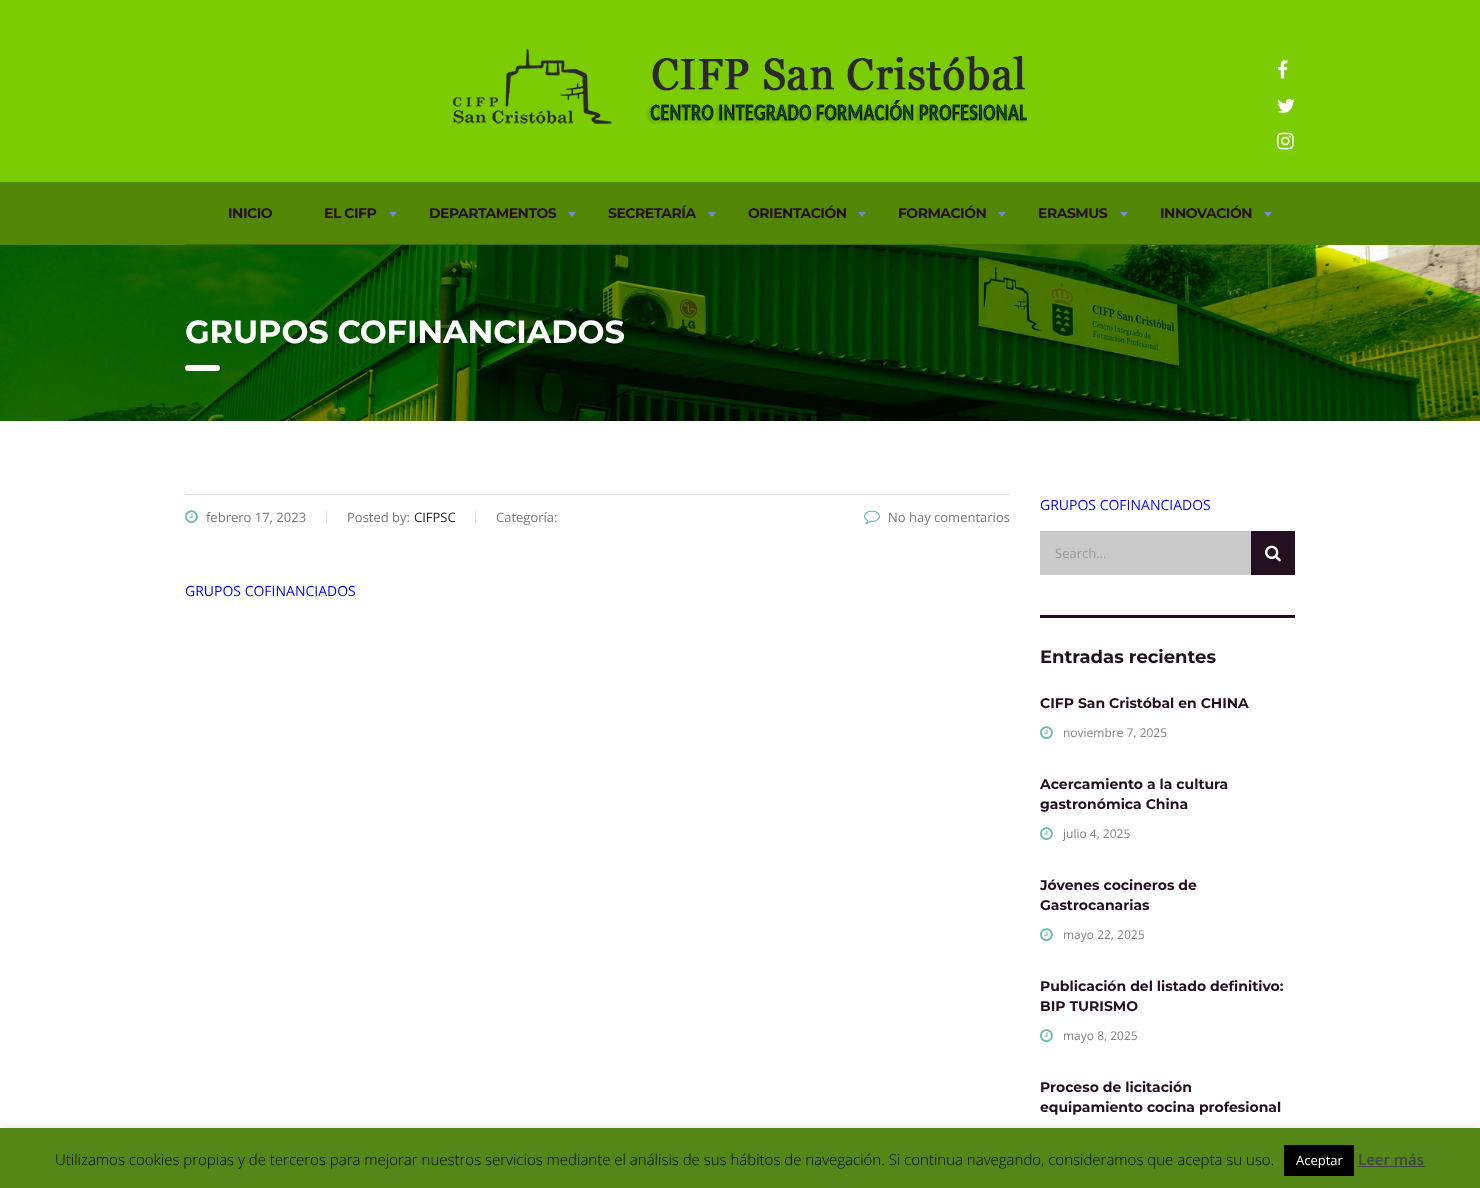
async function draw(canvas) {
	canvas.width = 1480;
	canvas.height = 1188;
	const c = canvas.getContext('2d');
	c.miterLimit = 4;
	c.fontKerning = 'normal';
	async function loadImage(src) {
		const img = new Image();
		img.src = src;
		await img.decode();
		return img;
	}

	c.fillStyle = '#fff';
	c.fillRect(0, 0, 1480, 1188);
	c.fillStyle = '#7bcc03';
	c.fillRect(0, 0, 1480, 182);
	c.drawImage(await loadImage('img1.png'), 453, 49, 574, 76);
	c.drawImage(await loadImage('img2.png'), 1278, 60, 10, 19);
	c.drawImage(await loadImage('img3.png'), 1277, 99, 18, 14);
	c.drawImage(await loadImage('img4.png'), 1277, 132, 17, 18);
	c.fillStyle = '#528705';
	c.fillRect(0, 182, 1480, 63);
	c.fillStyle = '#47690c';
	c.fillRect(185, 244, 1110, 1);
	c.letterSpacing = '-0.5px';
	c.font = 'bold 14px Montserrat';
	c.fillStyle = '#251021';
	c.fillText('INICIO', 228, 218);
	c.fillText('EL CIFP', 324, 218);
	c.fillStyle = '#6991d1';
	c.beginPath();
	c.moveTo(389, 212);
	c.lineTo(397, 212);
	c.lineTo(393, 217);
	c.closePath();
	c.fill();
	c.fillStyle = '#251021';
	c.fillText('DEPARTAMENTOS', 429, 218);
	c.fillStyle = '#6991d1';
	c.beginPath();
	c.moveTo(568, 212);
	c.lineTo(576, 212);
	c.lineTo(572, 217);
	c.closePath();
	c.fill();
	c.fillStyle = '#251021';
	c.fillText('SECRETARÍA', 608, 218);
	c.fillStyle = '#6991d1';
	c.beginPath();
	c.moveTo(708, 212);
	c.lineTo(716, 212);
	c.lineTo(712, 217);
	c.closePath();
	c.fill();
	c.fillStyle = '#251021';
	c.fillText('ORIENTACIÓN', 748, 218);
	c.fillStyle = '#6991d1';
	c.beginPath();
	c.moveTo(858, 212);
	c.lineTo(866, 212);
	c.lineTo(862, 217);
	c.closePath();
	c.fill();
	c.fillStyle = '#251021';
	c.fillText('FORMACIÓN', 898, 218);
	c.fillStyle = '#6991d1';
	c.beginPath();
	c.moveTo(998, 212);
	c.lineTo(1006, 212);
	c.lineTo(1002, 217);
	c.closePath();
	c.fill();
	c.fillStyle = '#251021';
	c.fillText('ERASMUS', 1038, 218);
	c.fillStyle = '#6991d1';
	c.beginPath();
	c.moveTo(1120, 212);
	c.lineTo(1128, 212);
	c.lineTo(1124, 217);
	c.closePath();
	c.fill();
	c.fillStyle = '#251021';
	c.fillText('INNOVACIÓN', 1160, 218);
	c.fillStyle = '#6991d1';
	c.beginPath();
	c.moveTo(1264, 212);
	c.lineTo(1272, 212);
	c.lineTo(1268, 217);
	c.closePath();
	c.fill();
	c.drawImage(await loadImage('img5.png'), 0, 245, 1480, 176);
	c.letterSpacing = '-0.1px';
	c.font = 'bold 32px Montserrat';
	c.fillStyle = '#fff';
	c.fillText('GRUPOS COFINANCIADOS', 185, 343);
	c.beginPath();
	c.roundRect(185, 365, 35, 6, 3);
	c.fill();
	c.fillStyle = '#ddd';
	c.fillRect(185, 494, 825, 1);
	c.drawImage(await loadImage('img6.png'), 185, 510, 13, 14);
	c.letterSpacing = '0px';
	c.font = '13px Open Sans';
	c.fillStyle = '#777';
	c.fillText('febrero 17, 2023', 206, 522);
	c.fillStyle = '#ddd';
	c.fillRect(326, 511, 1, 12);
	c.fillStyle = '#777';
	c.fillText('Posted by:', 347, 522);
	c.fillStyle = '#222';
	c.fillText('CIFPSC', 414, 522);
	c.fillStyle = '#ddd';
	c.fillRect(475, 511, 1, 12);
	c.fillStyle = '#777';
	c.fillText('Categoría:', 496, 522);
	c.drawImage(await loadImage('img7.png'), 864, 510, 16, 15);
	c.fillText('No hay comentarios', 888, 522);
	c.font = '14px Open Sans';
	c.fillStyle = '#00f';
	c.fillText('GRUPOS COFINANCIADOS', 185, 596);
	c.fillText('GRUPOS COFINANCIADOS', 1040, 510);
	c.fillStyle = '#cacaca';
	c.fillRect(1040, 531, 211, 44);
	c.font = '13px Open Sans';
	c.fillStyle = '#999';
	c.fillText('Search...', 1055, 558);
	c.fillStyle = '#251021';
	c.fillRect(1251, 531, 44, 44);
	c.drawImage(await loadImage('img8.png'), 1265, 545, 16, 17);
	c.fillRect(1040, 615, 255, 3);
	c.font = 'bold 18px Montserrat';
	c.fillText('Entradas recientes', 1040, 663);
	c.font = 'bold 14px Montserrat';
	c.fillText('CIFP San Cristóbal en CHINA', 1040, 708);
	c.drawImage(await loadImage('img6.png'), 1040, 726, 13, 14);
	c.font = '12px Open Sans';
	c.fillStyle = '#808080';
	c.fillText('noviembre 7, 2025', 1063, 737);
	c.font = 'bold 14px Montserrat';
	c.fillStyle = '#251021';
	c.fillText('Acercamiento a la cultura', 1040, 789);
	c.fillText('gastronómica China', 1040, 809);
	c.drawImage(await loadImage('img6.png'), 1040, 827, 13, 14);
	c.font = '12px Open Sans';
	c.fillStyle = '#808080';
	c.fillText('julio 4, 2025', 1063, 838);
	c.font = 'bold 14px Montserrat';
	c.fillStyle = '#251021';
	c.fillText('Jóvenes cocineros de', 1040, 890);
	c.fillText('Gastrocanarias', 1040, 910);
	c.drawImage(await loadImage('img6.png'), 1040, 928, 13, 14);
	c.font = '12px Open Sans';
	c.fillStyle = '#808080';
	c.fillText('mayo 22, 2025', 1063, 939);
	c.font = 'bold 14px Montserrat';
	c.fillStyle = '#251021';
	c.fillText('Publicación del listado definitivo:', 1040, 991);
	c.fillText('BIP TURISMO', 1040, 1011);
	c.drawImage(await loadImage('img6.png'), 1040, 1029, 13, 14);
	c.font = '12px Open Sans';
	c.fillStyle = '#808080';
	c.fillText('mayo 8, 2025', 1063, 1040);
	c.font = 'bold 14px Montserrat';
	c.fillStyle = '#251021';
	c.fillText('Proceso de licitación', 1040, 1092);
	c.fillText('equipamiento cocina profesional', 1040, 1112);
	c.fillStyle = '#acabab4d';
	c.filter = 'blur(5px)';
	c.beginPath();
	c.rect(0, 1127, 1480, 60);
	c.fill();
	c.filter = 'none';
	c.fillStyle = '#548618';
	c.fillRect(0, 1128, 1480, 60);
	c.font = '300 15px Open Sans';
	c.fillStyle = '#000';
	c.fillText('Utilizamos cookies propias y de terceros para mejorar nuestros servicios mediante el análisis de sus hábitos de navegación. Si continua navegando, consideramos que acepta su uso.', 55, 1165);
	c.fillRect(1284, 1145, 70, 31);
	c.font = '13px Open Sans';
	c.fillStyle = '#fff';
	c.fillText('Aceptar', 1296, 1165);
	c.font = '600 15px Open Sans';
	c.fillStyle = '#444';
	c.fillText('Leer más', 1358, 1165);
	c.fillRect(1358, 1166, 67, 1);
}

draw(document.querySelector('canvas'));
